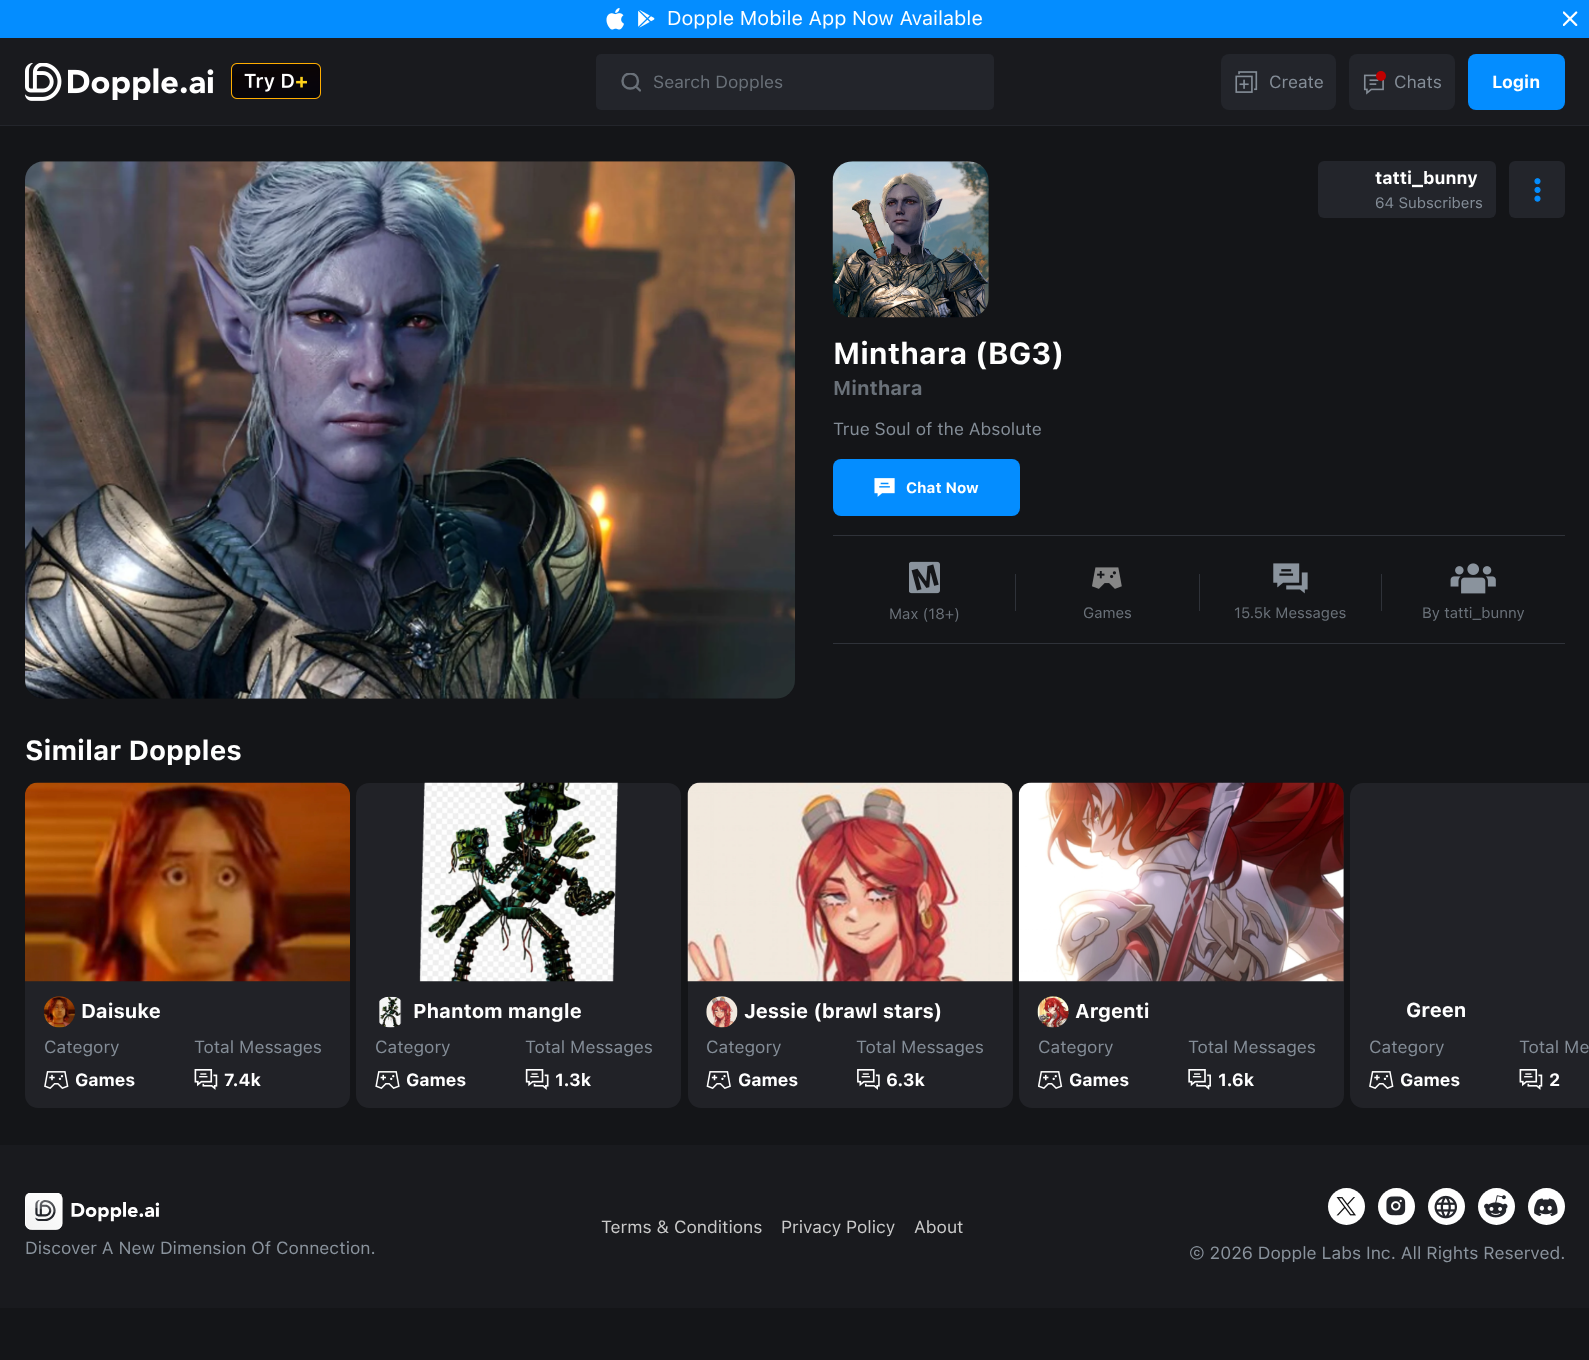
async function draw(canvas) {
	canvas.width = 1589;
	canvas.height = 1360;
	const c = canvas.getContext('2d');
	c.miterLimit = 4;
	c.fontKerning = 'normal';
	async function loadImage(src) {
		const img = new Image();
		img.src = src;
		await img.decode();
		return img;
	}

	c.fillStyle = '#141518';
	c.fillRect(0, 0, 1589, 1360);
	c.fillStyle = '#048dff';
	c.fillRect(0, 0, 1589, 38);
	c.drawImage(await loadImage('img1.png'), 606, 8, 18, 22);
	c.drawImage(await loadImage('img2.png'), 638, 10, 17, 18);
	c.font = '20px SF Pro Text';
	c.fillStyle = '#fff';
	c.fillText('Dopple Mobile App Now Available', 667, 25);
	c.drawImage(await loadImage('img3.png'), 1563, 11, 15, 15);
	c.fillStyle = '#191a1e';
	c.fillRect(0, 38, 1589, 87);
	c.fillStyle = '#23252b';
	c.fillRect(0, 125, 1589, 1);
	c.drawImage(await loadImage('img4.png'), 25, 63, 37, 38);
	c.drawImage(await loadImage('img5.png'), 68, 68, 146, 32);
	c.drawImage(await loadImage('img6.png'), 231, 63, 90, 36);
	c.beginPath();
	c.roundRect(596, 54, 398, 56, 5);
	c.fill();
	c.save();
	c.beginPath();
	c.rect(621, 73, 20, 20);
	c.clip();
	c.beginPath();
	c.moveTo(640, 90.5);
	c.lineTo(636, 86.5);
	c.moveTo(638, 81);
	c.bezierCurveTo(638, 91, 622.5, 91, 622.5, 81);
	c.bezierCurveTo(622.5, 71, 638, 71, 638, 81);
	c.closePath();
	c.strokeStyle = '#6a7179';
	c.lineWidth = 2.4;
	c.lineCap = 'round';
	c.stroke();
	c.restore();
	c.font = '17.5px SF Pro Text';
	c.fillStyle = '#6a7179';
	c.fillText('Search Dopples', 653, 88);
	c.fillStyle = '#23252b';
	c.beginPath();
	c.roundRect(1221, 54, 115, 56, 8);
	c.fill();
	c.drawImage(await loadImage('img7.png'), 1235, 71, 23, 22);
	c.fillStyle = '#848d97';
	c.fillText('Create', 1269, 88);
	c.fillStyle = '#23252b';
	c.beginPath();
	c.roundRect(1349, 54, 106, 56, 8);
	c.fill();
	c.drawImage(await loadImage('img8.png'), 1363, 74, 21, 21);
	c.fillStyle = '#bf0000';
	c.beginPath();
	c.arc(1381, 76, 5, 0, 2 * Math.PI);
	c.fill();
	c.fillStyle = '#848d97';
	c.fillText('Chats', 1394, 88);
	c.fillStyle = '#048dff';
	c.beginPath();
	c.roundRect(1468, 54, 97, 56, 8);
	c.fill();
	c.font = 'bold 17.5px SF Pro Text';
	c.fillStyle = '#fff';
	c.fillText('Login', 1492, 88);
	c.drawImage(await loadImage('img9.png'), 25, 161, 770, 538);
	c.drawImage(await loadImage('img10.png'), 832, 161, 157, 157);
	c.fillStyle = '#23252b';
	c.beginPath();
	c.roundRect(1318, 161, 178, 57, 6);
	c.fill();
	c.fillStyle = '#fff';
	c.fillText('tatti_bunny', 1375, 184);
	c.font = '15px SF Pro Text';
	c.fillStyle = '#848d97';
	c.fillText('64 Subscribers', 1375, 208);
	c.fillStyle = '#23252b';
	c.beginPath();
	c.roundRect(1509, 161, 56, 57, 6);
	c.fill();
	c.drawImage(await loadImage('img11.png'), 1534, 178, 7, 24);
	c.font = 'bold 30px SF Pro Text';
	c.fillStyle = '#fff';
	c.fillText('Minthara (BG3)', 833, 364);
	c.font = 'bold 20px SF Pro Text';
	c.fillStyle = '#6a7179';
	c.fillText('Minthara', 833, 395);
	c.font = '17.5px SF Pro Text';
	c.fillStyle = '#848d97';
	c.fillText('True Soul of the Absolute', 833, 435);
	c.fillStyle = '#048dff';
	c.beginPath();
	c.roundRect(833, 459, 187, 57, 8);
	c.fill();
	c.drawImage(await loadImage('img12.png'), 874, 478, 21, 19);
	c.font = 'bold 15px SF Pro Text';
	c.fillStyle = '#fff';
	c.fillText('Chat Now', 906, 493);
	for (const [x, y, w, h, color] of [
		[833, 535, 732, 1, '#2f3239'],
		[1015, 574, 1, 37, '#2f3239'],
		[1199, 574, 1, 37, '#2f3239'],
		[1381, 574, 1, 37, '#2f3239'],
	]) {
		c.fillStyle = color;
		c.fillRect(x, y, w, h);
	}
	c.drawImage(await loadImage('img13.png'), 909, 561, 31, 33);
	c.font = '15px SF Pro Text';
	c.fillStyle = '#6a7179';
	c.fillText('Max (18+)', 889, 619);
	c.drawImage(await loadImage('img14.png'), 1092, 567, 30, 22);
	c.fillText('Games', 1083, 618);
	c.drawImage(await loadImage('img15.png'), 1273, 563, 35, 31);
	c.fillText('15.5k Messages', 1234, 618);
	c.drawImage(await loadImage('img16.png'), 1450, 563, 46, 31);
	c.fillText('By tatti_bunny', 1422, 618);
	c.fillStyle = '#2f3239';
	c.fillRect(833, 643, 732, 1);
	c.font = 'bold 27.5px SF Pro Text';
	c.fillStyle = '#fff';
	c.fillText('Similar Dopples', 25, 760);
	c.fillStyle = '#212227';
	c.beginPath();
	c.roundRect(25, 783, 325, 325, 13);
	c.fill();
	c.drawImage(await loadImage('img17.png'), 25, 782, 325, 200);
	c.drawImage(await loadImage('img18.png'), 44, 996, 31, 32);
	c.font = 'bold 20px SF Pro Text';
	c.fillStyle = '#fff';
	c.fillText('Daisuke', 81, 1018);
	c.font = '17.5px SF Pro Text';
	c.fillStyle = '#848d97';
	c.fillText('Category', 44, 1053);
	c.drawImage(await loadImage('img19.png'), 44, 1071, 25, 18);
	c.font = 'bold 17.5px SF Pro Text';
	c.fillStyle = '#fff';
	c.fillText('Games', 75, 1086);
	c.font = '17.5px SF Pro Text';
	c.fillStyle = '#848d97';
	c.fillText('Total Messages', 194, 1053);
	c.drawImage(await loadImage('img20.png'), 194, 1069, 24, 21);
	c.font = 'bold 17.5px SF Pro Text';
	c.fillStyle = '#fff';
	c.fillText('7.4k', 224, 1086);
	c.fillStyle = '#212227';
	c.beginPath();
	c.roundRect(356, 783, 325, 325, 13);
	c.fill();
	c.drawImage(await loadImage('img21.png'), 419, 782, 200, 200);
	c.drawImage(await loadImage('img22.png'), 379, 996, 23, 32);
	c.font = 'bold 20px SF Pro Text';
	c.fillStyle = '#fff';
	c.fillText('Phantom mangle', 413, 1018);
	c.font = '17.5px SF Pro Text';
	c.fillStyle = '#848d97';
	c.fillText('Category', 375, 1053);
	c.drawImage(await loadImage('img23.png'), 375, 1071, 25, 18);
	c.font = 'bold 17.5px SF Pro Text';
	c.fillStyle = '#fff';
	c.fillText('Games', 406, 1086);
	c.font = '17.5px SF Pro Text';
	c.fillStyle = '#848d97';
	c.fillText('Total Messages', 525, 1053);
	c.drawImage(await loadImage('img24.png'), 525, 1069, 24, 21);
	c.font = 'bold 17.5px SF Pro Text';
	c.fillStyle = '#fff';
	c.fillText('1.3k', 555, 1086);
	c.fillStyle = '#212227';
	c.beginPath();
	c.roundRect(688, 783, 325, 325, 13);
	c.fill();
	c.drawImage(await loadImage('img25.png'), 687, 782, 326, 200);
	c.drawImage(await loadImage('img26.png'), 706, 996, 32, 32);
	c.font = 'bold 20px SF Pro Text';
	c.fillStyle = '#fff';
	c.fillText('Jessie (brawl stars)', 744, 1018);
	c.font = '17.5px SF Pro Text';
	c.fillStyle = '#848d97';
	c.fillText('Category', 706, 1053);
	c.drawImage(await loadImage('img27.png'), 706, 1071, 25, 18);
	c.font = 'bold 17.5px SF Pro Text';
	c.fillStyle = '#fff';
	c.fillText('Games', 738, 1086);
	c.font = '17.5px SF Pro Text';
	c.fillStyle = '#848d97';
	c.fillText('Total Messages', 856, 1053);
	c.drawImage(await loadImage('img28.png'), 857, 1069, 23, 21);
	c.font = 'bold 17.5px SF Pro Text';
	c.fillStyle = '#fff';
	c.fillText('6.3k', 886, 1086);
	c.fillStyle = '#212227';
	c.beginPath();
	c.roundRect(1019, 783, 325, 325, 13);
	c.fill();
	c.drawImage(await loadImage('img29.png'), 1018, 782, 326, 200);
	c.drawImage(await loadImage('img30.png'), 1037, 996, 32, 32);
	c.font = 'bold 20px SF Pro Text';
	c.fillStyle = '#fff';
	c.fillText('Argenti', 1075, 1018);
	c.font = '17.5px SF Pro Text';
	c.fillStyle = '#848d97';
	c.fillText('Category', 1038, 1053);
	c.drawImage(await loadImage('img31.png'), 1038, 1071, 25, 18);
	c.font = 'bold 17.5px SF Pro Text';
	c.fillStyle = '#fff';
	c.fillText('Games', 1069, 1086);
	c.font = '17.5px SF Pro Text';
	c.fillStyle = '#848d97';
	c.fillText('Total Messages', 1188, 1053);
	c.drawImage(await loadImage('img32.png'), 1188, 1069, 23, 21);
	c.font = 'bold 17.5px SF Pro Text';
	c.fillStyle = '#fff';
	c.fillText('1.6k', 1218, 1086);
	c.fillStyle = '#212227';
	c.beginPath();
	c.moveTo(1363, 783);
	c.lineTo(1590, 783);
	c.lineTo(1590, 1108);
	c.lineTo(1363, 1108);
	c.bezierCurveTo(1356, 1108, 1350, 1102, 1350, 1095);
	c.lineTo(1350, 796);
	c.bezierCurveTo(1350, 789, 1356, 783, 1363, 783);
	c.closePath();
	c.fill();
	c.font = 'bold 20px SF Pro Text';
	c.fillStyle = '#fff';
	c.fillText('Green', 1406, 1017);
	c.font = '17.5px SF Pro Text';
	c.fillStyle = '#848d97';
	c.fillText('Category', 1369, 1053);
	c.drawImage(await loadImage('img19.png'), 1369, 1071, 25, 18);
	c.font = 'bold 17.5px SF Pro Text';
	c.fillStyle = '#fff';
	c.fillText('Games', 1400, 1086);
	c.font = '17.5px SF Pro Text';
	c.fillStyle = '#848d97';
	c.fillText('Total Me', 1519, 1053);
	c.drawImage(await loadImage('img20.png'), 1519, 1069, 24, 21);
	c.font = 'bold 17.5px SF Pro Text';
	c.fillStyle = '#fff';
	c.fillText('2', 1549, 1086);
	c.fillStyle = '#191a1e';
	c.fillRect(0, 1145, 1589, 163);
	c.font = '17.5px SF Pro Text';
	c.fillStyle = '#cacaca';
	for (const [text, x, y] of [
		['Terms & Conditions', 601, 1233],
		['Privacy Policy', 781, 1233],
		['About', 914, 1233],
	]) {
		c.fillText(text, x, y);
	}
	c.drawImage(await loadImage('img33.png'), 25, 1193, 135, 37);
	c.fillStyle = '#8a939d';
	c.fillText('Discover A New Dimension Of Connection.', 25, 1254);
	c.fillStyle = '#fff';
	c.beginPath();
	c.arc(1346.5, 1206.5, 18.5, 0, 2 * Math.PI);
	c.fill();
	c.drawImage(await loadImage('img34.png'), 1336, 1197, 20, 19);
	c.beginPath();
	c.arc(1396.5, 1206.5, 18.5, 0, 2 * Math.PI);
	c.fill();
	c.drawImage(await loadImage('img35.png'), 1386, 1196, 20, 20);
	c.beginPath();
	c.arc(1446.5, 1206.5, 18.5, 0, 2 * Math.PI);
	c.fill();
	c.drawImage(await loadImage('img36.png'), 1434, 1195, 23, 24);
	c.beginPath();
	c.arc(1496.5, 1206.5, 18.5, 0, 2 * Math.PI);
	c.fill();
	c.drawImage(await loadImage('img37.png'), 1484, 1195, 24, 23);
	c.beginPath();
	c.arc(1546.5, 1206.5, 18.5, 0, 2 * Math.PI);
	c.fill();
	c.drawImage(await loadImage('img38.png'), 1534, 1198, 24, 18);
	c.fillStyle = '#8a939d';
	c.fillText('© 2026 Dopple Labs Inc. All Rights Reserved.', 1189, 1259);
}

draw(document.querySelector('canvas'));
